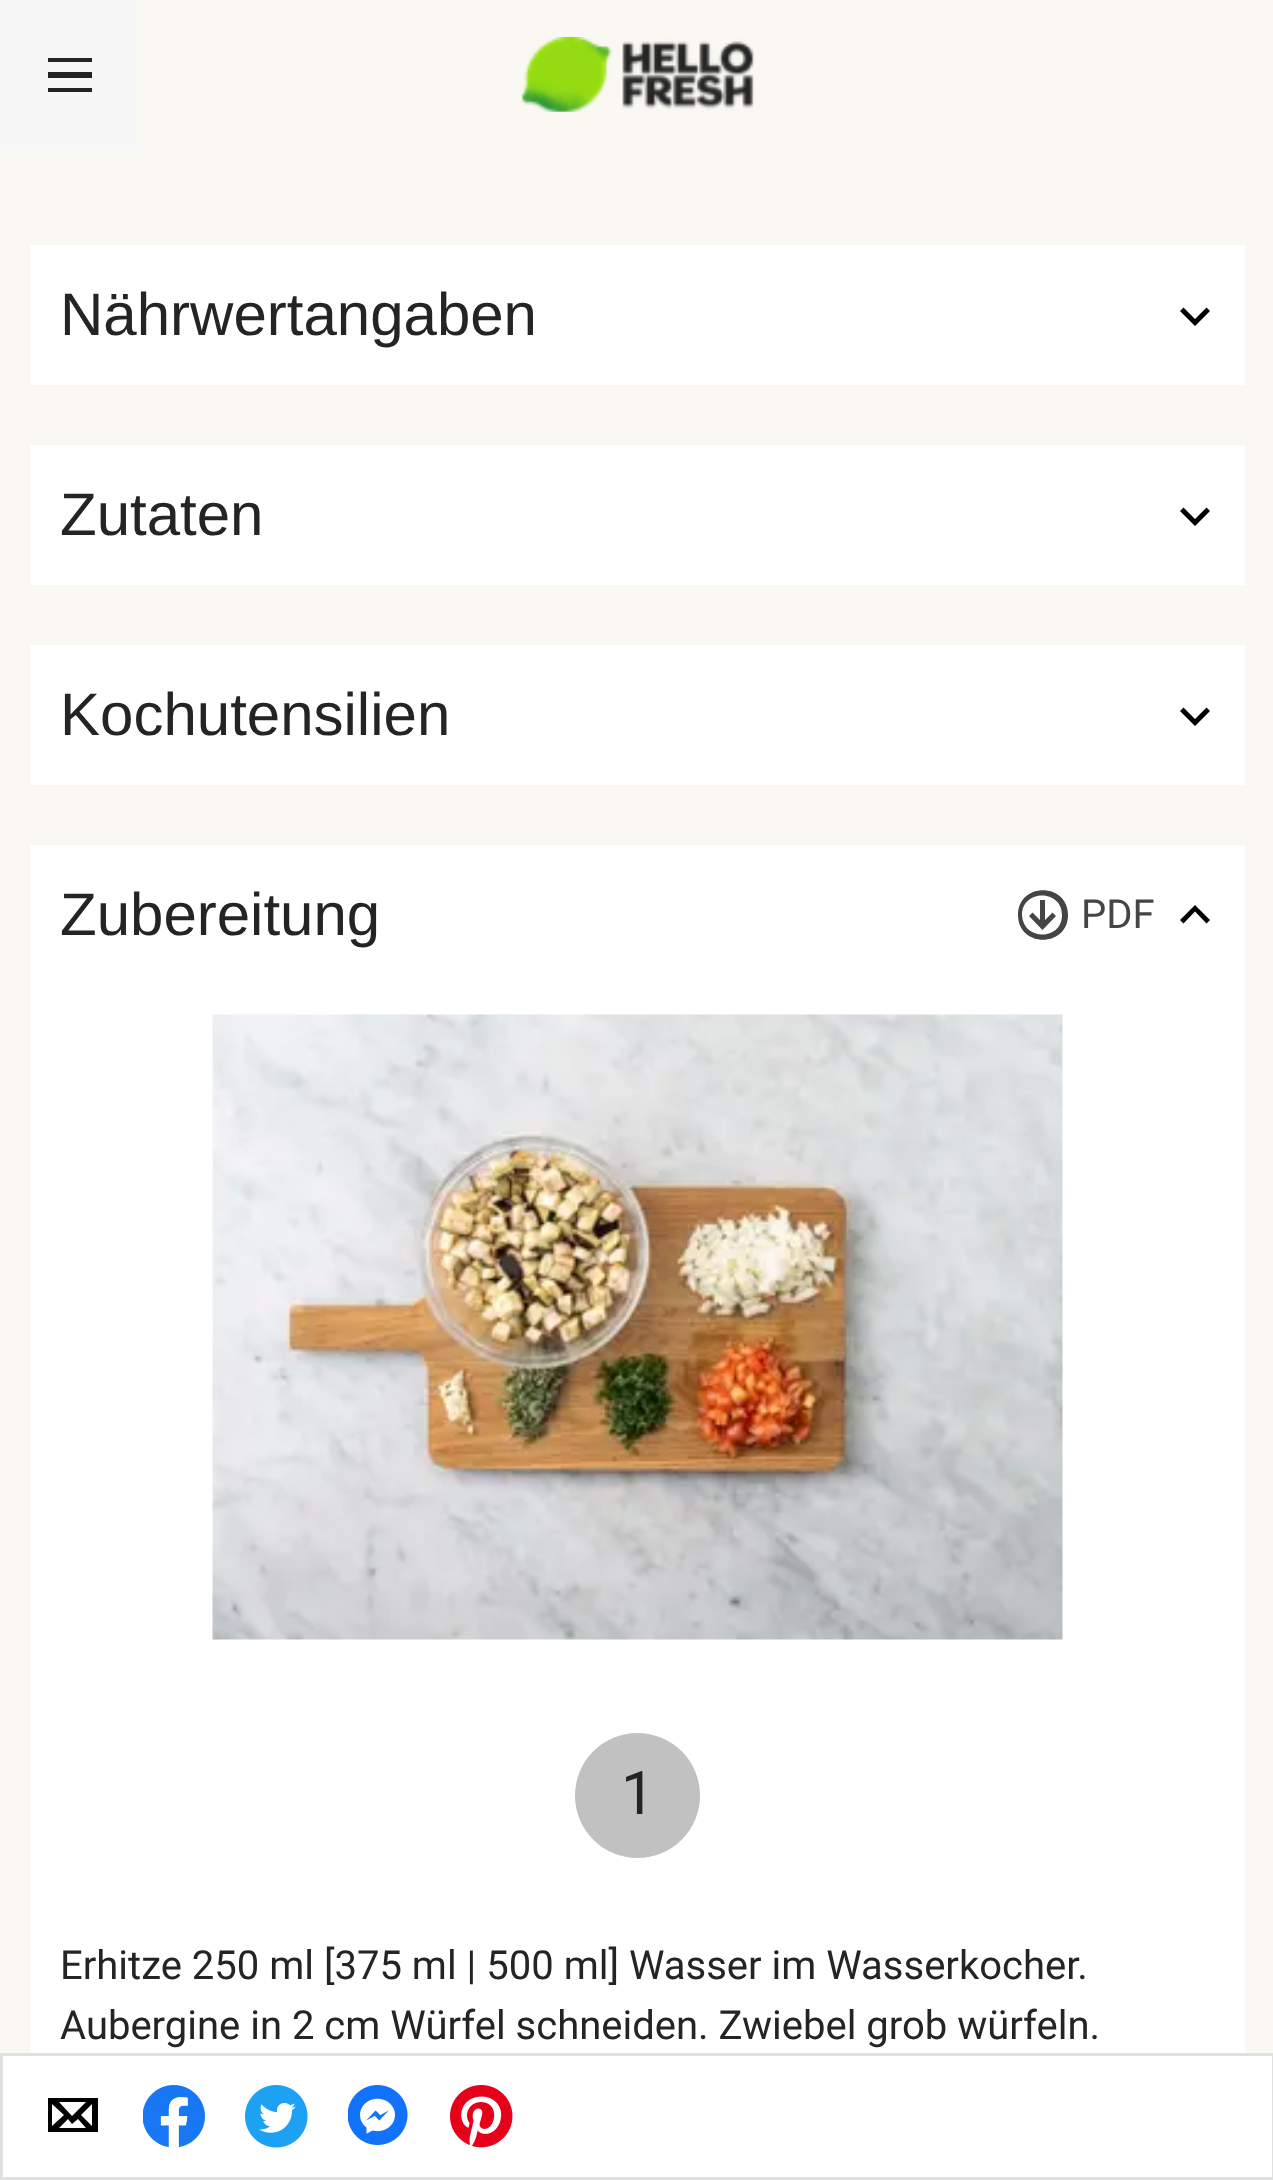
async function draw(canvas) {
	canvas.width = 1273;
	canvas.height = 2180;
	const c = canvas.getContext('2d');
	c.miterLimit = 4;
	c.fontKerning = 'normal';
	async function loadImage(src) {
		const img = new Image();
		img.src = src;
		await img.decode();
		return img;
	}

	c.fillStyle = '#faf8f3';
	c.fillRect(0, 0, 1273, 2180);
	c.fillStyle = '#f7f7f7';
	c.fillRect(0, 0, 140, 150);
	c.fillStyle = '#242424';
	c.beginPath();
	c.moveTo(48, 58);
	c.lineTo(92, 58);
	c.lineTo(92, 62);
	c.lineTo(48, 62);
	c.closePath();
	c.moveTo(48, 72);
	c.lineTo(92, 72);
	c.lineTo(92, 78);
	c.lineTo(48, 78);
	c.closePath();
	c.moveTo(92, 88);
	c.lineTo(48, 88);
	c.lineTo(48, 92);
	c.lineTo(92, 92);
	c.closePath();
	c.fill();
	c.drawImage(await loadImage('img1.png'), 521, 37, 234, 75);
	c.fillStyle = '#fff';
	c.fillRect(30, 245, 1215, 140);
	c.font = '60px Liberation Sans';
	c.fillStyle = '#242424';
	c.fillText('Nährwertangaben', 60, 335);
	c.fillStyle = '#000';
	c.beginPath();
	c.moveTo(1195, 326);
	c.lineTo(1180, 311);
	c.lineTo(1183.5, 307.5);
	c.lineTo(1195, 319);
	c.lineTo(1206.5, 307.5);
	c.lineTo(1210, 311);
	c.closePath();
	c.fill('evenodd');
	c.fillStyle = '#fff';
	c.fillRect(30, 445, 1215, 140);
	c.fillStyle = '#242424';
	c.fillText('Zutaten', 60, 535);
	c.fillStyle = '#000';
	c.beginPath();
	c.moveTo(1195, 526);
	c.lineTo(1180, 511);
	c.lineTo(1183.5, 507.5);
	c.lineTo(1195, 519);
	c.lineTo(1206.5, 507.5);
	c.lineTo(1210, 511);
	c.closePath();
	c.fill('evenodd');
	c.fillStyle = '#fff';
	c.fillRect(30, 645, 1215, 140);
	c.fillStyle = '#242424';
	c.fillText('Kochutensilien', 60, 735);
	c.fillStyle = '#000';
	c.beginPath();
	c.moveTo(1195, 726);
	c.lineTo(1180, 711);
	c.lineTo(1183.5, 707.5);
	c.lineTo(1195, 719);
	c.lineTo(1206.5, 707.5);
	c.lineTo(1210, 711);
	c.closePath();
	c.fill('evenodd');
	c.fillStyle = '#fff';
	c.fillRect(30, 845, 1215, 1208);
	c.fillStyle = '#242424';
	c.fillText('Zubereitung', 60, 935);
	c.fillStyle = '#000';
	c.beginPath();
	c.moveTo(1195, 905);
	c.lineTo(1210, 920);
	c.lineTo(1206.5, 923.5);
	c.lineTo(1195, 911.5);
	c.lineTo(1183.5, 923.5);
	c.lineTo(1180, 920);
	c.closePath();
	c.fill('evenodd');
	c.fillStyle = '#454545';
	c.beginPath();
	c.moveTo(1040, 900);
	c.lineTo(1040, 920);
	c.lineTo(1032.5, 912.5);
	c.lineTo(1029, 916);
	c.lineTo(1042.5, 930);
	c.lineTo(1056, 916);
	c.lineTo(1052.5, 912.5);
	c.lineTo(1045, 920);
	c.lineTo(1045, 900);
	c.closePath();
	c.fill();
	c.beginPath();
	c.moveTo(1068, 915);
	c.bezierCurveTo(1068, 948, 1018, 948, 1018, 915);
	c.bezierCurveTo(1018, 882, 1068, 882, 1068, 915);
	c.closePath();
	c.moveTo(1062, 915);
	c.bezierCurveTo(1062, 941, 1023, 941, 1022, 915);
	c.bezierCurveTo(1022, 889, 1062, 889, 1062, 915);
	c.closePath();
	c.fill('evenodd');
	c.font = '40px Roboto';
	c.fillText('PDF', 1081, 928);
	c.drawImage(await loadImage('img2.png'), 212, 1014, 851, 626);
	c.fillStyle = '#c1c1c1';
	c.beginPath();
	c.arc(637.5, 1795.5, 62.5, 0, 2 * Math.PI);
	c.fill();
	c.font = '60px Roboto';
	c.fillStyle = '#242424';
	c.fillText('1', 621, 1814);
	c.font = '40px Roboto';
	c.fillText('Erhitze 250 ml [375 ml | 500 ml] Wasser im Wasserkocher.', 60, 1979);
	c.fillText('Aubergine in 2 cm Würfel schneiden. Zwiebel grob würfeln.', 60, 2039);
	c.fillStyle = '#fff';
	c.beginPath();
	c.rect(1.5, 2054.5, 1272, 124);
	c.fill();
	c.strokeStyle = '#e0e0e0';
	c.lineWidth = 3;
	c.stroke();
	c.fillStyle = '#000';
	c.beginPath();
	c.moveTo(98, 2132);
	c.lineTo(48, 2132);
	c.lineTo(48, 2098);
	c.lineTo(98, 2098);
	c.closePath();
	c.moveTo(92, 2104);
	c.lineTo(81, 2115);
	c.lineTo(92, 2126);
	c.closePath();
	c.moveTo(52, 2104);
	c.lineTo(52, 2126);
	c.lineTo(64, 2115);
	c.closePath();
	c.moveTo(59, 2128);
	c.lineTo(86, 2128);
	c.lineTo(78, 2119);
	c.lineTo(72, 2124);
	c.lineTo(68, 2119);
	c.closePath();
	c.moveTo(59, 2102);
	c.lineTo(86, 2102);
	c.lineTo(72, 2116);
	c.closePath();
	c.fill('evenodd');
	c.drawImage(await loadImage('img3.png'), 143, 2085, 62, 63);
	c.drawImage(await loadImage('img4.png'), 245, 2085, 63, 63);
	c.drawImage(await loadImage('img5.png'), 348, 2085, 60, 60);
	c.drawImage(await loadImage('img6.png'), 450, 2085, 63, 63);
}

draw(document.querySelector('canvas'));
